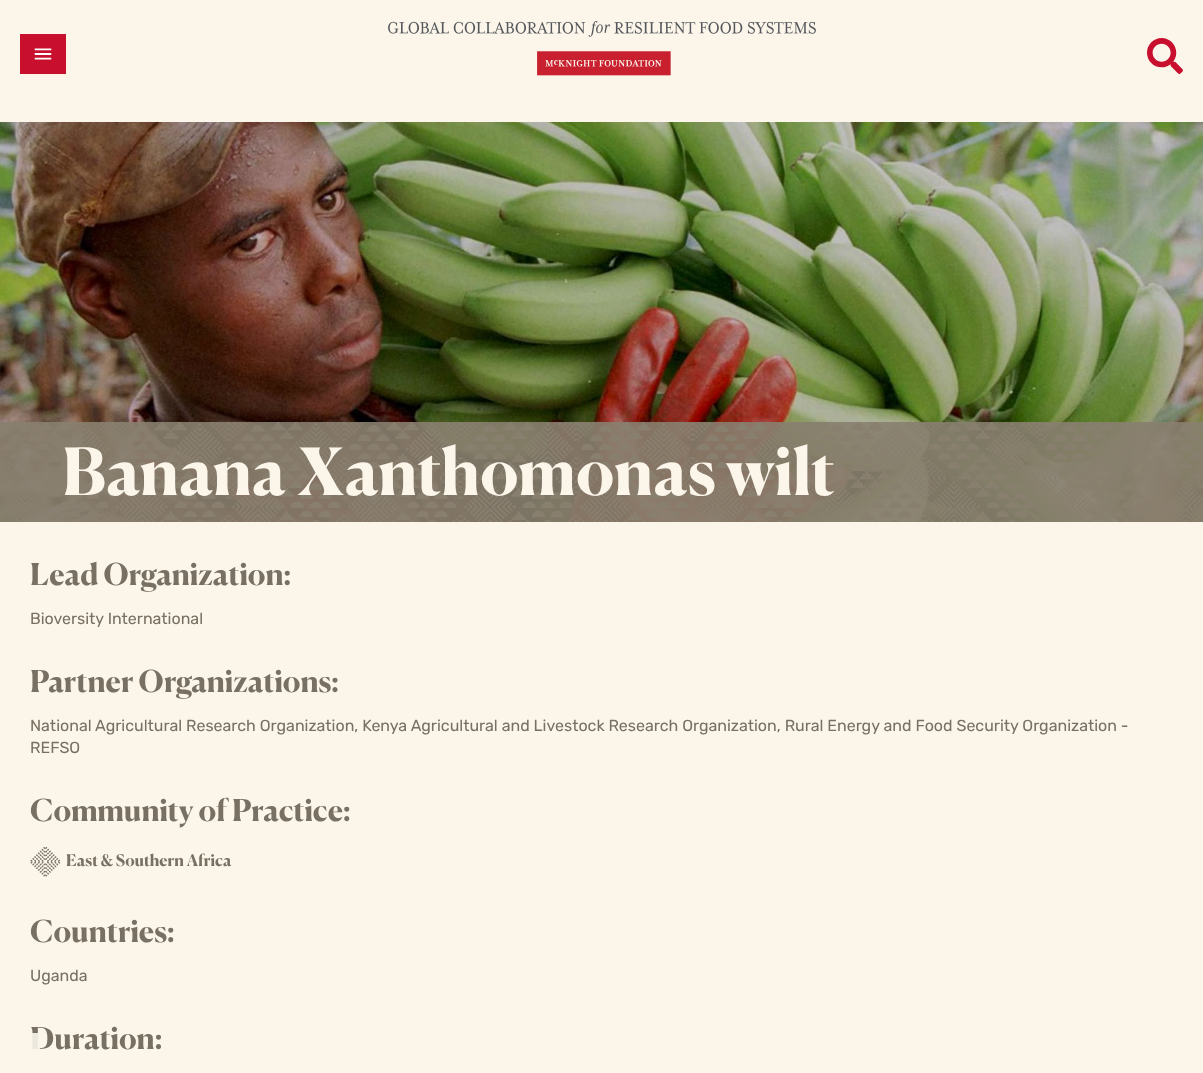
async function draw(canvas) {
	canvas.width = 1203;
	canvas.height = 1073;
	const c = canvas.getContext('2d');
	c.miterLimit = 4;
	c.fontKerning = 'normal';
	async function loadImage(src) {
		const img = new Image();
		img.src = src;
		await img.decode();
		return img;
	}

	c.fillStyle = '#fbf5ea';
	c.fillRect(0, 0, 1203, 1073);
	c.fillStyle = '#c8102e';
	c.fillRect(20, 34, 46, 40);
	c.drawImage(await loadImage('img1.png'), 34, 48, 18, 12);
	c.drawImage(await loadImage('img2.png'), 388, 21, 428, 55);
	c.drawImage(await loadImage('img3.png'), 1147, 38, 36, 36);
	c.drawImage(await loadImage('img4.png'), 0, 122, 1203, 400);
	c.fillStyle = '#887f6fe6';
	c.fillRect(0, 422, 1203, 100);
	c.drawImage(await loadImage('img5.png'), 0, 422, 1203, 100);
	c.font = 'bold 65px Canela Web';
	c.fillStyle = '#fbf5ea';
	c.fillText('Banana Xanthomonas wilt', 62, 495);
	c.font = 'bold 30px Canela Web';
	c.fillStyle = '#787062';
	c.fillText('Lead Organization:', 30, 585);
	c.font = '16px Rubik';
	c.fillText('Bioversity International', 30, 624);
	c.font = 'bold 30px Canela Web';
	c.fillText('Partner Organizations:', 30, 692);
	c.font = '16px Rubik';
	c.fillText('National Agricultural Research Organization, Kenya Agricultural and Livestock Research Organization, Rural Energy and Food Security Organization -', 30, 731);
	c.fillText('REFSO', 30, 753);
	c.font = 'bold 30px Canela Web';
	c.fillText('Community of Practice:', 30, 821);
	c.drawImage(await loadImage('img6.png'), 30, 847, 30, 30);
	c.font = 'bold 16px Canela Web';
	c.fillText('East & Southern Africa', 66, 866);
	c.font = 'bold 30px Canela Web';
	c.fillText('Countries:', 30, 942);
	c.font = '16px Rubik';
	c.fillText('Uganda', 30, 981);
	c.font = 'bold 30px Canela Web';
	c.fillText('Duration:', 30, 1049);
	c.fillStyle = '#faf5ebe6';
	c.fillRect(31, 1033, 9, 16);
}

draw(document.querySelector('canvas'));
